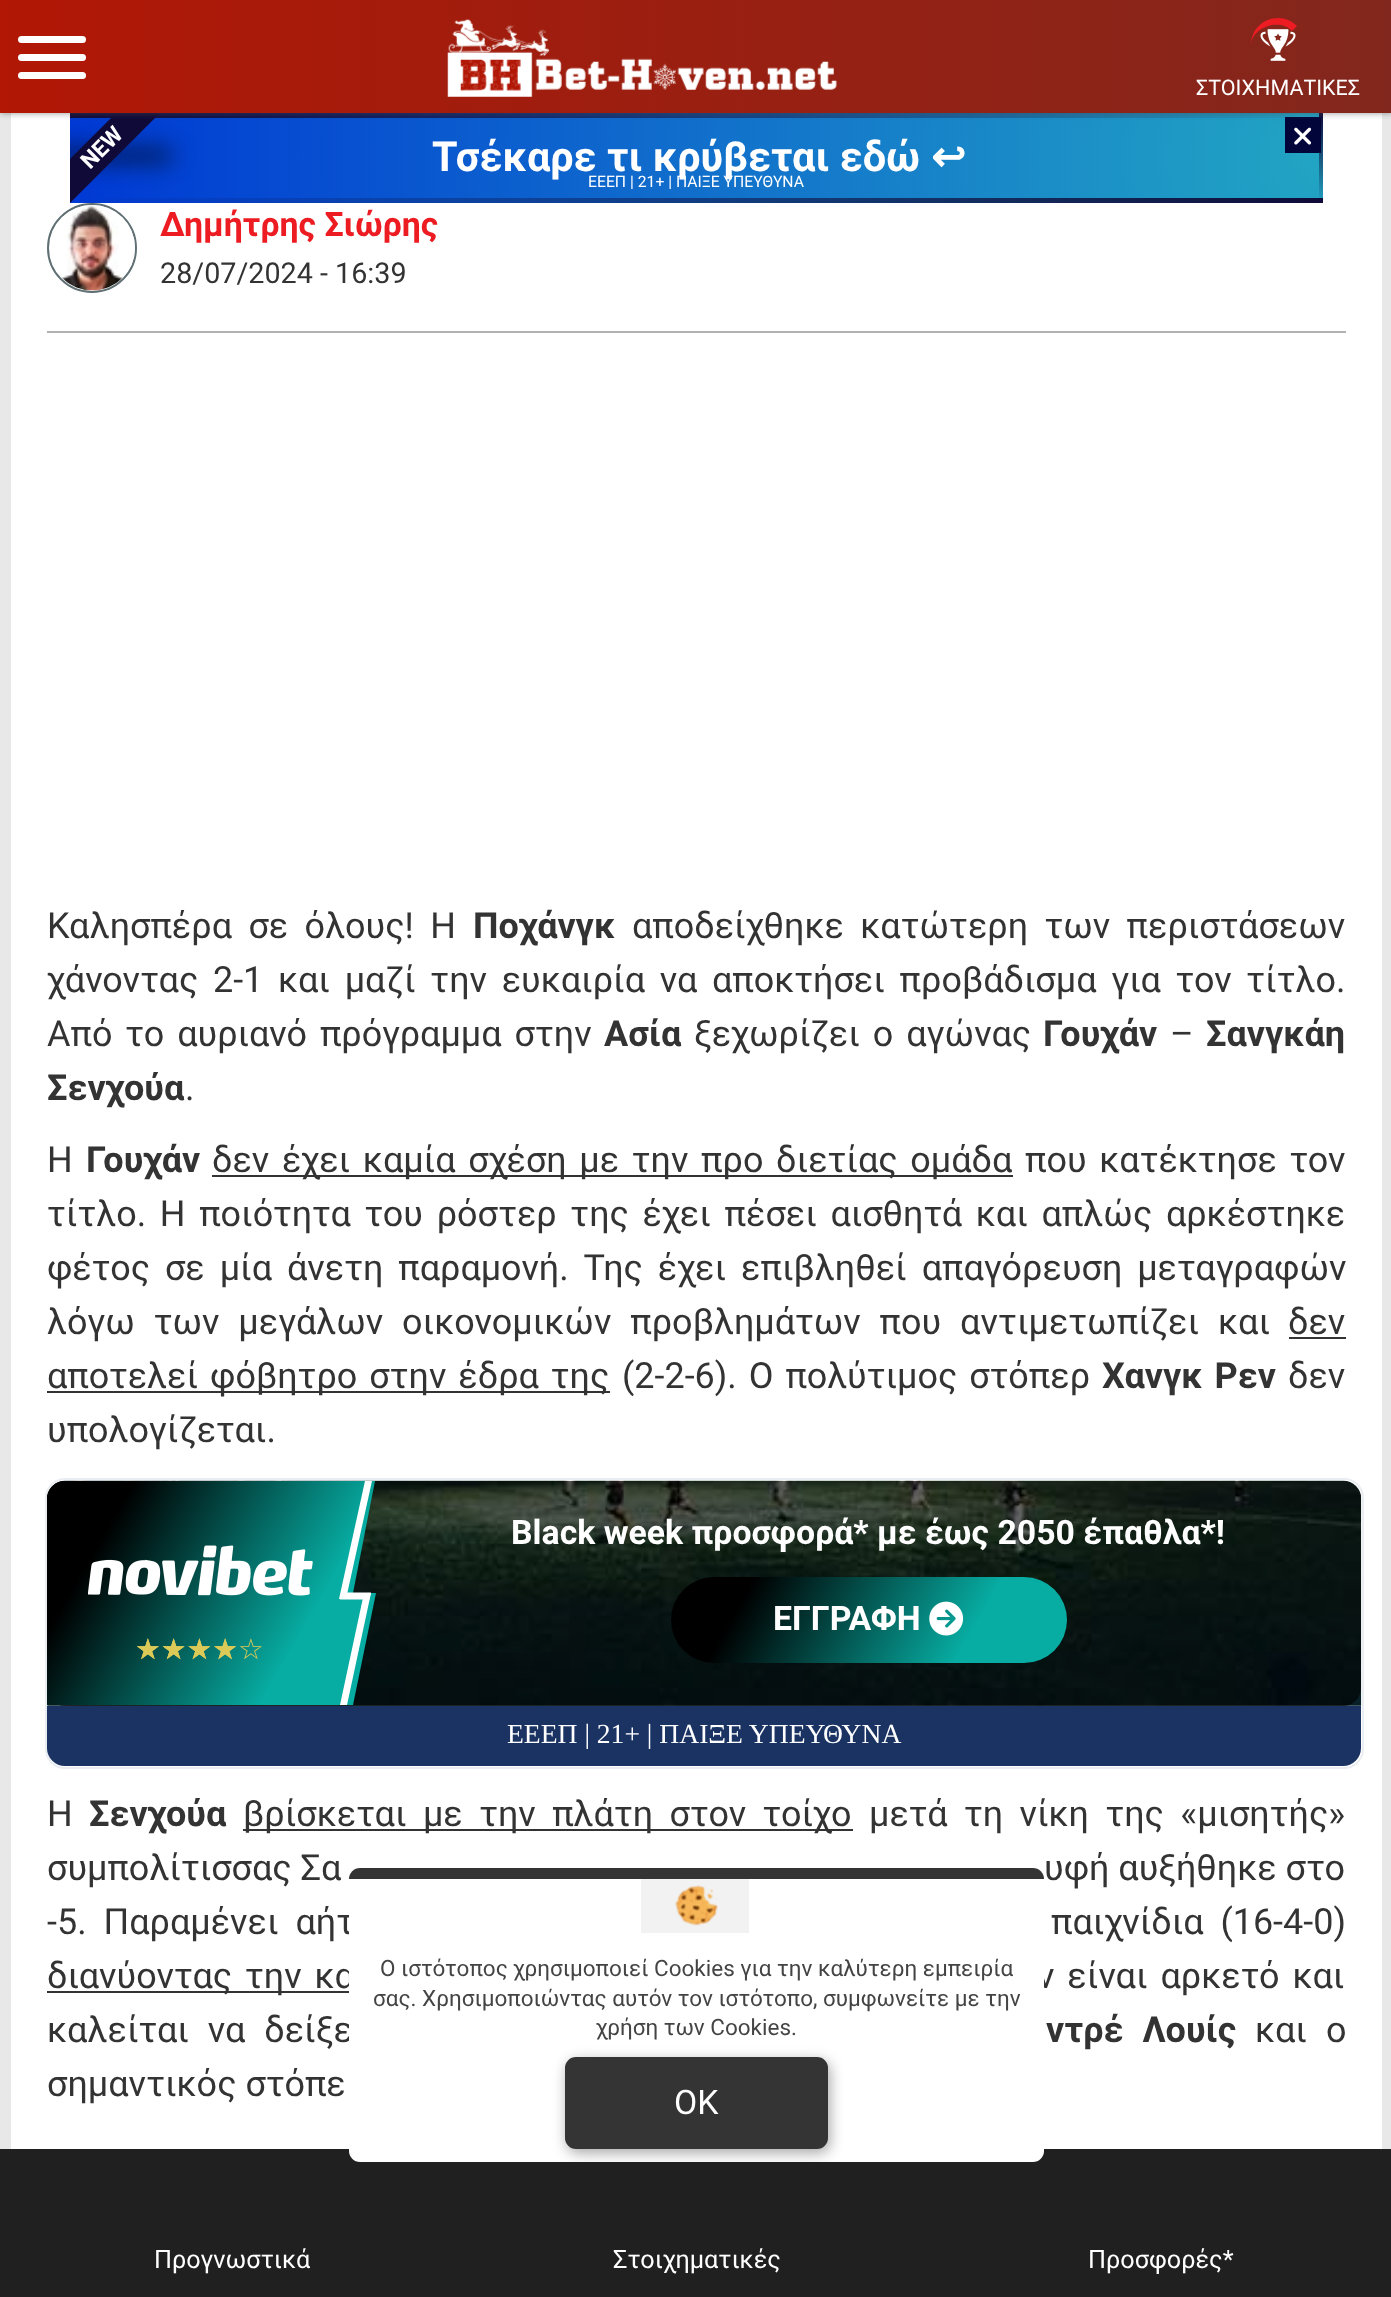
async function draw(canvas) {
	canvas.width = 1391;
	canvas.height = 2297;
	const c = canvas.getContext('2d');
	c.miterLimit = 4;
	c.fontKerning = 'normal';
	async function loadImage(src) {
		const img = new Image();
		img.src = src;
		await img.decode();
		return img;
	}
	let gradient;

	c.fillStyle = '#e8e8e8';
	c.fillRect(0, 0, 1391, 2297);
	gradient = c.createLinearGradient(0, 56, 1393, 56);
	gradient.addColorStop(0, '#b21705');
	gradient.addColorStop(1, '#82271d');
	c.fillStyle = gradient;
	c.fillRect(0, 0, 1391, 113);
	c.fillStyle = '#fff';
	c.fillRect(11, 113, 1371, 2036);
	gradient = c.createRadialGradient(1324, 158, 0, 1324, 158, 1254);
	gradient.addColorStop(0, '#22a5c3');
	gradient.addColorStop(1, '#0039d4');
	c.fillStyle = gradient;
	c.fillRect(70, 113, 1253, 90);
	c.save();
	c.beginPath();
	c.rect(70, 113, 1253, 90);
	c.clip();
	c.fillStyle = '#000';
	c.filter = 'blur(11.5px)';
	c.beginPath();
	c.rect(34, 151, 137, 9);
	c.fill();
	c.filter = 'none';
	c.restore();
	c.save();
	c.beginPath();
	c.rect(70, 113, 1253, 90);
	c.clip();
	c.fillStyle = '#0f0a38';
	c.beginPath();
	c.moveTo(35, 194);
	c.lineTo(148, 81);
	c.lineTo(170, 103);
	c.lineTo(57, 216);
	c.closePath();
	c.fill();
	c.restore();
	gradient = c.createLinearGradient(1324, 115, 71, 115);
	gradient.addColorStop(0, '#0f0a3800');
	gradient.addColorStop(1, '#0f0a38');
	c.fillStyle = gradient;
	c.fillRect(70, 113, 1227, 5);
	gradient = c.createLinearGradient(1322, 203, 1322, 113);
	gradient.addColorStop(0, '#0f0a3800');
	gradient.addColorStop(1, '#0f0a38');
	c.fillStyle = gradient;
	c.fillRect(1319, 113, 4, 90);
	c.fillStyle = '#02053a';
	c.fillRect(1285, 117, 36, 36);
	c.save();
	c.beginPath();
	c.moveTo(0, 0);
	c.lineTo(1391, 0);
	c.lineTo(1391, 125);
	c.lineTo(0, 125);
	c.closePath();
	c.moveTo(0, 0);
	c.lineTo(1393, 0);
	c.lineTo(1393, 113);
	c.lineTo(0, 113);
	c.closePath();
	c.clip('evenodd');
	c.fillStyle = '#514e4f99';
	c.filter = 'blur(3.5px)';
	c.beginPath();
	c.rect(0, 0, 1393, 113);
	c.fill();
	c.filter = 'none';
	c.restore();
	c.fillStyle = '#fff';
	c.beginPath();
	c.roundRect(18, 54, 68, 7, 3.5);
	c.fill();
	c.beginPath();
	c.roundRect(18, 36, 68, 7, 3.5);
	c.fill();
	c.beginPath();
	c.roundRect(18, 72, 68, 7, 3.5);
	c.fill();
	c.drawImage(await loadImage('img1.png'), 447, 19, 390, 78);
	c.fillStyle = '#ec1c22';
	c.beginPath();
	c.moveTo(1278, 18);
	c.bezierCurveTo(1263, 18, 1251, 30, 1251, 45);
	c.bezierCurveTo(1252, 27, 1280, 18, 1292, 31);
	c.lineTo(1297, 26);
	c.bezierCurveTo(1292, 21, 1286, 18, 1278, 18);
	c.closePath();
	c.fill();
	c.drawImage(await loadImage('img2.png'), 1260, 29, 36, 32);
	c.font = '21.5px Roboto';
	c.fillStyle = '#fff';
	c.fillText('ΣΤΟΙΧΗΜΑΤΙΚΕΣ', 1196, 95);
	c.font = 'bold 22.5px Roboto';
	c.save();
	c.translate(90, 170);
	c.rotate(-45 * Math.PI / 180);
	c.fillText('NEW', 0, 0);
	c.restore();
	c.font = 'bold 41.4px Roboto';
	c.fillText('Τσέκαρε τι κρύβεται εδώ', 432, 171);
	c.font = 'bold 41.4px DejaVu Sans';
	c.fillText('↩', 931, 171);
	c.font = '15.75px Roboto';
	c.fillText('ΕΕΕΠ | 21+ | ΠΑΙΞΕ ΥΠΕΥΘΥΝΑ', 588, 187);
	gradient = c.createLinearGradient(71, 200, 1324, 200);
	gradient.addColorStop(0, '#0f0a3800');
	gradient.addColorStop(1, '#0f0a38');
	c.fillStyle = gradient;
	c.fillRect(98, 198, 1225, 5);
	c.drawImage(await loadImage('img3.png'), 1294, 127, 18, 18);
	c.beginPath();
	c.arc(92, 248, 44, 0, 2 * Math.PI);
	c.strokeStyle = '#5f6f73';
	c.lineWidth = 2;
	c.stroke();
	c.drawImage(await loadImage('img4.png'), 50, 205, 85, 86);
	c.font = 'bold 33.8px Roboto';
	c.fillStyle = '#ec1c22';
	c.fillText('Δημήτρης Σιώρης', 160, 236);
	c.font = '28.75px Roboto';
	c.fillStyle = '#333';
	c.fillText('28/07/2024 - 16:39', 160, 283);
	c.fillStyle = '#b1b1b1';
	c.fillRect(47, 331, 1299, 2);
	c.wordSpacing = '7.5px';
	c.font = '36px Roboto';
	c.fillStyle = '#333';
	c.fillText('Καλησπέρα σε όλους! Η', 47, 938);
	c.wordSpacing = '0px';
	c.font = 'bold 36px Roboto';
	c.fillText('Ποχάνγκ', 473, 938);
	c.wordSpacing = '7.5px';
	c.font = '36px Roboto';
	c.fillText('αποδείχθηκε κατώτερη των περιστάσεων', 632, 938);
	c.wordSpacing = '5.75px';
	c.fillText('χάνοντας 2-1 και μαζί την ευκαιρία να αποκτήσει προβάδισμα για τον τίτλο.', 47, 992);
	c.wordSpacing = '4px';
	c.fillText('Από το αυριανό πρόγραμμα στην', 47, 1046);
	c.wordSpacing = '0px';
	c.font = 'bold 36px Roboto';
	c.fillText('Ασία', 604, 1046);
	c.wordSpacing = '4px';
	c.font = '36px Roboto';
	c.fillText('ξεχωρίζει ο αγώνας', 694, 1046);
	c.wordSpacing = '0px';
	c.font = 'bold 36px Roboto';
	c.fillText('Γουχάν', 1043, 1046);
	c.font = '36px Roboto';
	c.fillText('–', 1170, 1046);
	c.font = 'bold 36px Roboto';
	c.fillText('Σανγκάη', 1206, 1046);
	c.fillText('Σενχούα', 47, 1100);
	c.font = '36px Roboto';
	c.fillText('.', 185, 1100);
	c.fillText('Η', 47, 1172);
	c.font = 'bold 36px Roboto';
	c.fillText('Γουχάν', 86, 1172);
	c.fillRect(212, 1175, 801, 2);
	c.wordSpacing = '3.75px';
	c.font = '36px Roboto';
	c.fillText('δεν έχει καμία σχέση με την προ διετίας ομάδα', 212, 1172);
	c.fillText('που κατέκτησε τον', 1025, 1172);
	c.wordSpacing = '4.75px';
	c.fillText('τίτλο. Η ποιότητα του ρόστερ της έχει πέσει αισθητά και απλώς αρκέστηκε', 47, 1226);
	c.wordSpacing = '6px';
	c.fillText('φέτος σε μία άνετη παραμονή. Της έχει επιβληθεί απαγόρευση μεταγραφών', 47, 1280);
	c.wordSpacing = '10px';
	c.fillText('λόγω των μεγάλων οικονομικών προβλημάτων που αντιμετωπίζει και', 47, 1334);
	c.wordSpacing = '0px';
	c.fillText('δεν', 1288, 1334);
	c.fillRect(1289, 1337, 57, 2);
	c.fillRect(47, 1391, 563, 2);
	c.wordSpacing = '3px';
	c.fillText('αποτελεί φόβητρο στην έδρα της', 47, 1388);
	c.fillText('(2-2-6). Ο πολύτιμος στόπερ', 622, 1388);
	c.font = 'bold 36px Roboto';
	c.fillText('Χανγκ Ρεν', 1102, 1388);
	c.wordSpacing = '0px';
	c.font = '36px Roboto';
	c.fillText('δεν', 1288, 1388);
	c.fillText('υπολογίζεται.', 47, 1442);
	c.beginPath();
	c.roundRect(46, 1479, 1317, 289, 19);
	c.strokeStyle = '#eaeef2';
	c.stroke();
	c.drawImage(await loadImage('img5.png'), 47, 1480, 1315, 226);
	c.fillStyle = '#00000099';
	c.beginPath();
	c.roundRect(47, 1481, 1314, 225, 18);
	c.fill();
	c.font = 'bold 33.8px Roboto';
	c.fillStyle = '#fff';
	c.fillText('Βlack week προσφορά* με έως 2050 έπαθλα*!', 511, 1544);
	gradient = c.createLinearGradient(701, 1524, 1036, 1716);
	gradient.addColorStop(0.19, '#000');
	gradient.addColorStop(0.75, '#07ada3');
	c.fillStyle = gradient;
	c.beginPath();
	c.roundRect(671, 1577, 396, 86, 43);
	c.fill();
	c.fillStyle = '#fff';
	c.fillText('ΕΓΓΡΑΦΗ', 773, 1630);
	c.drawImage(await loadImage('img6.png'), 929, 1601, 35, 35);
	gradient = c.createLinearGradient(40, 1494, 383, 1692);
	gradient.addColorStop(0.19, '#000');
	gradient.addColorStop(0.75, '#07ada3');
	c.fillStyle = gradient;
	c.beginPath();
	c.moveTo(65, 1481);
	c.lineTo(375, 1481);
	c.lineTo(353, 1593);
	c.lineTo(376, 1593);
	c.lineTo(353, 1705);
	c.lineTo(47, 1705);
	c.lineTo(47, 1496);
	c.bezierCurveTo(49, 1487, 56, 1481, 65, 1481);
	c.closePath();
	c.fill();
	c.fillStyle = '#fff';
	c.beginPath();
	c.moveTo(341.5, 1592.5);
	c.lineTo(371, 1592.5);
	c.lineTo(369.5, 1599.5);
	c.lineTo(340, 1599.5);
	c.closePath();
	c.fill();
	c.beginPath();
	c.moveTo(364, 1593);
	c.lineTo(371, 1593);
	c.lineTo(347, 1705);
	c.lineTo(340, 1705);
	c.closePath();
	c.fill();
	c.beginPath();
	c.moveTo(372, 1481);
	c.lineTo(365, 1481);
	c.lineTo(339, 1599);
	c.lineTo(346, 1599);
	c.closePath();
	c.fill();
	c.drawImage(await loadImage('img7.png'), 88, 1545, 225, 51);
	c.font = '28.75px DejaVu Sans';
	c.fillStyle = '#dbca57';
	c.fillText('☆☆☆☆☆', 135, 1659);
	c.fillText('★★★★', 135, 1659);
	c.fillStyle = '#1a3362';
	c.beginPath();
	c.roundRect(47, 1706, 1314, 60, [0, 0, 18, 18]);
	c.fill();
	c.font = '27.6px Liberation Serif';
	c.fillStyle = '#fff';
	c.fillText('ΕΕΕΠ | 21+ | ΠΑΙΞΕ ΥΠΕΥΘΥΝΑ', 507, 1743);
	c.font = '36px Roboto';
	c.fillStyle = '#333';
	c.fillText('Η', 47, 1826);
	c.font = 'bold 36px Roboto';
	c.fillText('Σενχούα', 89, 1826);
	c.fillRect(243, 1829, 610, 2);
	c.wordSpacing = '7.5px';
	c.font = '36px Roboto';
	c.fillText('βρίσκεται με την πλάτη στον τοίχο', 243, 1826);
	c.fillText('μετά τη νίκη της «μισητής»', 869, 1826);
	c.wordSpacing = '0px';
	c.fillText('συμπολίτισσας Σα', 47, 1880);
	c.fillText('υφή αυξήθηκε στο', 1044, 1880);
	c.wordSpacing = '8px';
	c.fillText('-5. Παραμένει αήτ', 47, 1934);
	c.fillText('παιχνίδια (16-4-0)', 1051, 1934);
	c.fillRect(47, 1991, 302, 2);
	c.wordSpacing = '4px';
	c.fillText('διανύοντας την κα', 47, 1988);
	c.fillText('ν είναι αρκετό και', 1037, 1988);
	c.wordSpacing = '10px';
	c.fillText('καλείται να δείξε', 47, 2042);
	c.font = 'bold 36px Roboto';
	c.fillText('ντρέ Λουίς', 1046, 2042);
	c.font = '36px Roboto';
	c.fillText('και ο', 1255, 2042);
	c.wordSpacing = '0px';
	c.fillText('σημαντικός στόπε', 47, 2096);
	c.fillStyle = '#202020';
	c.fillRect(0, 2149, 1391, 148);
	c.fillStyle = '#fff';
	c.beginPath();
	c.roundRect(349, 1868, 695, 294, 11);
	c.fill();
	c.fillStyle = '#343434';
	c.beginPath();
	c.roundRect(349, 1868, 695, 11, [11, 11, 0, 0]);
	c.fill();
	c.fillStyle = '#0000000d';
	c.fillRect(641, 1879, 108, 54);
	c.drawImage(await loadImage('img8.png'), 675, 1885, 43, 41);
	c.font = '22.5px Roboto';
	c.fillStyle = '#444';
	for (const [text, x, y] of [
		['Ο ιστότοπος χρησιμοποιεί Cookies για την καλύτερη εμπειρία', 380, 1976],
		['σας. Χρησιμοποιώντας αυτόν τον ιστότοπο, συμφωνείτε με την', 373, 2006],
		['χρήση των Cookies.', 596, 2035],
	]) {
		c.fillText(text, x, y);
	}
	c.save();
	c.beginPath();
	c.roundRect(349, 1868, 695, 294, 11);
	c.clip();
	c.fillStyle = '#00000059';
	c.filter = 'blur(7px)';
	c.beginPath();
	c.roundRect(567, 2061, 263, 92, 11);
	c.fill();
	c.filter = 'none';
	c.restore();
	c.fillStyle = '#343434';
	c.beginPath();
	c.roundRect(566, 2058, 261, 90, 10);
	c.fill();
	c.strokeStyle = '#343434';
	c.stroke();
	c.font = '33.8px Roboto';
	c.fillStyle = '#fff';
	c.fillText('OK', 674, 2114);
	c.font = '25.25px Roboto';
	for (const [text, x, y] of [
		['Προγνωστικά', 154, 2268],
		['Στοιχηματικές', 613, 2268],
		['Προσφορές*', 1088, 2268],
	]) {
		c.fillText(text, x, y);
	}
}

draw(document.querySelector('canvas'));
